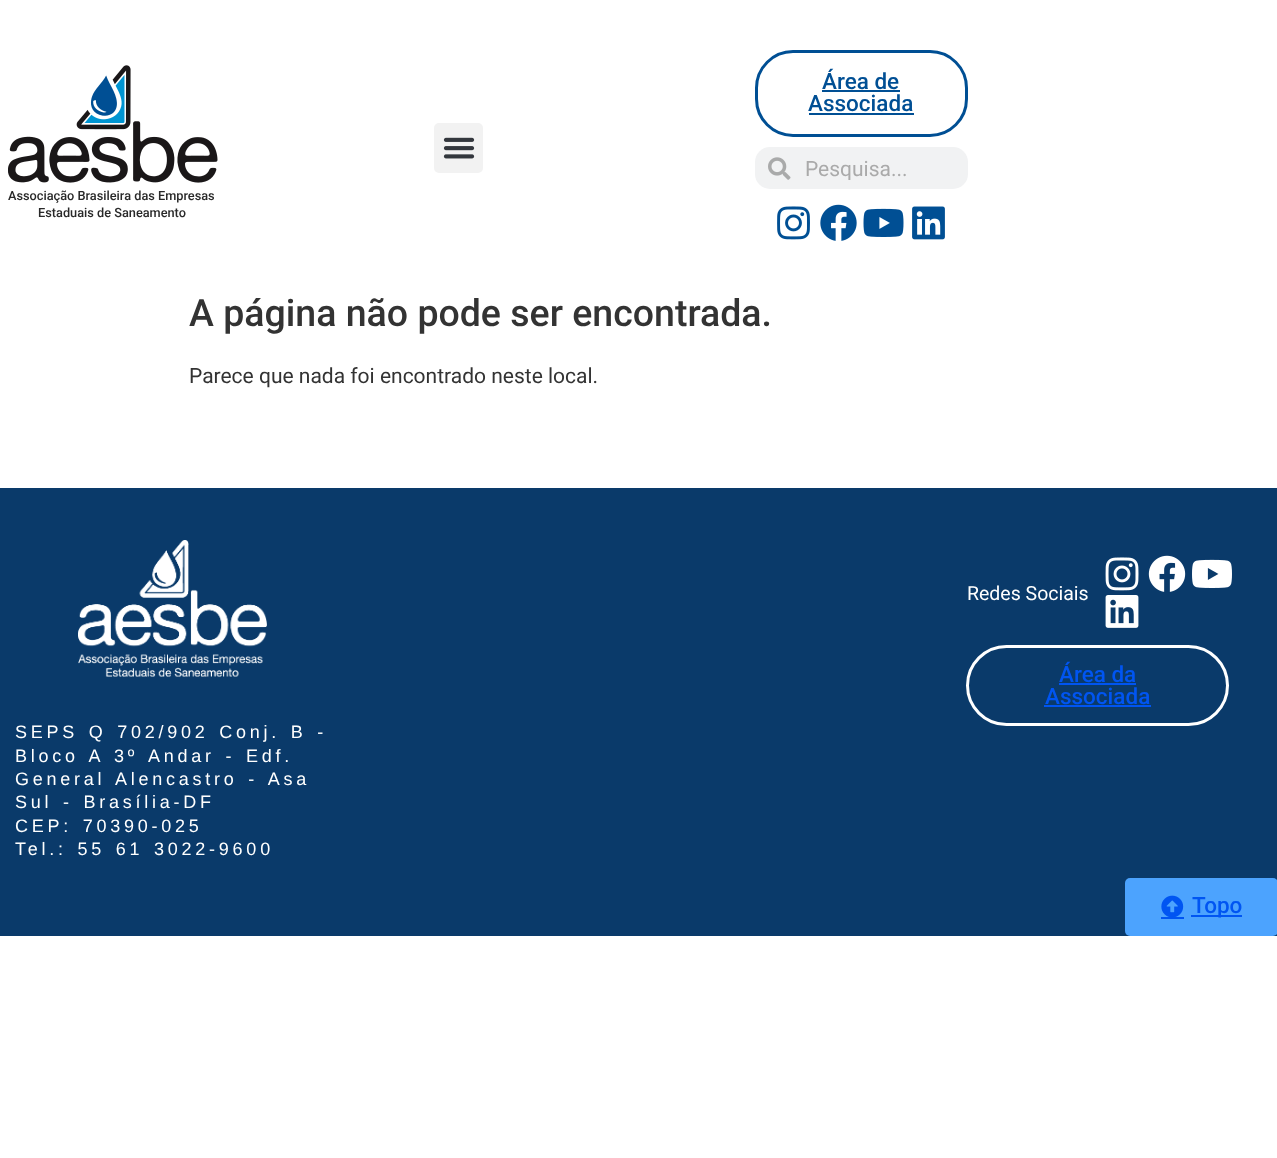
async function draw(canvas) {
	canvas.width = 1277;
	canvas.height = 1158;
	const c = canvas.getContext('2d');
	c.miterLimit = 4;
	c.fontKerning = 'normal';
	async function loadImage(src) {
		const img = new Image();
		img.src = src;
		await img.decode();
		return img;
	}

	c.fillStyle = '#fff';
	c.fillRect(0, 0, 1277, 1158);
	c.fillStyle = '#f2f2f2';
	c.beginPath();
	c.roundRect(434, 123, 49, 50, 5);
	c.fill();
	c.drawImage(await loadImage('img1.png'), 443, 137, 32, 22);
	c.beginPath();
	c.roundRect(756.5, 51.5, 210, 84, 36.5);
	c.strokeStyle = '#004f94';
	c.lineWidth = 3;
	c.stroke();
	c.font = '500 22.5px Roboto';
	c.fillStyle = '#004f94';
	c.fillText('Área de', 822, 89);
	c.fillRect(822, 90, 78, 2);
	c.fillText('Associada', 808, 111);
	c.fillRect(809, 113, 105, 2);
	c.fillStyle = '#f1f2f3';
	c.beginPath();
	c.roundRect(755, 147, 213, 42, 15);
	c.fill();
	c.drawImage(await loadImage('img2.png'), 768, 157, 23, 23);
	c.save();
	c.beginPath();
	c.rect(806, 156, 127, 24);
	c.clip();
	c.font = '21px Roboto';
	c.fillStyle = '#aaa';
	c.fillText('Pesquisa...', 805, 176);
	c.restore();
	c.drawImage(await loadImage('img3.png'), 777, 206, 33, 34);
	c.drawImage(await loadImage('img4.png'), 820, 204, 37, 37);
	c.drawImage(await loadImage('img5.png'), 863, 208, 41, 29);
	c.drawImage(await loadImage('img6.png'), 912, 206, 33, 34);
	c.drawImage(await loadImage('img7.png'), 8, 65, 210, 118);
	c.font = '500 12.75px Roboto';
	c.fillStyle = '#292929';
	c.fillText('Associação Brasileira das Empresas', 8, 200);
	c.fillText('Estaduais de Saneamento', 38, 217);
	c.font = '500 37.5px Roboto';
	c.fillStyle = '#333';
	c.fillText('A página não pode ser encontrada.', 189, 326);
	c.font = '21px Roboto';
	c.fillText('Parece que nada foi encontrado neste local.', 189, 383);
	c.fillStyle = '#0a3a6a';
	c.fillRect(0, 488, 1277, 448);
	c.font = '19.5px Roboto';
	c.fillStyle = '#fff';
	c.fillText('Redes Sociais', 967, 600);
	c.drawImage(await loadImage('img8.png'), 1105, 557, 34, 34);
	c.drawImage(await loadImage('img9.png'), 1148, 555, 38, 37);
	c.drawImage(await loadImage('img10.png'), 1192, 559, 40, 29);
	c.drawImage(await loadImage('img11.png'), 1105, 595, 34, 33);
	c.beginPath();
	c.roundRect(967.5, 646.5, 260, 78, 39);
	c.strokeStyle = '#fff';
	c.stroke();
	c.font = '500 22.5px Roboto';
	c.fillStyle = '#0055f2';
	c.fillText('Área da', 1059, 682);
	c.fillRect(1059, 683, 77, 2);
	c.fillText('Associada', 1045, 704);
	c.fillRect(1044, 705, 107, 2);
	c.drawImage(await loadImage('img12.png'), 78, 540, 189, 137);
	c.letterSpacing = '3.75px';
	c.wordSpacing = '2px';
	c.font = '18px Liberation Sans';
	c.fillStyle = '#fff';
	for (const [text, x, y] of [
		['SEPS Q 702/902 Conj. B -', 15, 738],
		['Bloco A 3º Andar - Edf.', 15, 762],
		['General Alencastro - Asa', 15, 785],
		['Sul - Brasília-DF', 15, 808],
		['CEP: 70390-025', 15, 832],
		['Tel.: 55 61 3022-9600', 15, 855],
	]) {
		c.fillText(text, x, y);
	}
	c.fillStyle = '#4ca3fe';
	c.beginPath();
	c.roundRect(1125, 878, 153, 58, 5);
	c.fill();
	c.drawImage(await loadImage('img13.png'), 1161, 895, 23, 22);
	c.fillStyle = '#0055f2';
	c.fillRect(1161, 917, 23, 2);
	c.fillRect(1191, 915, 51, 2);
	c.letterSpacing = '0px';
	c.wordSpacing = '0px';
	c.font = '500 22.5px Roboto';
	c.fillText('Topo', 1192, 913);
}

draw(document.querySelector('canvas'));
